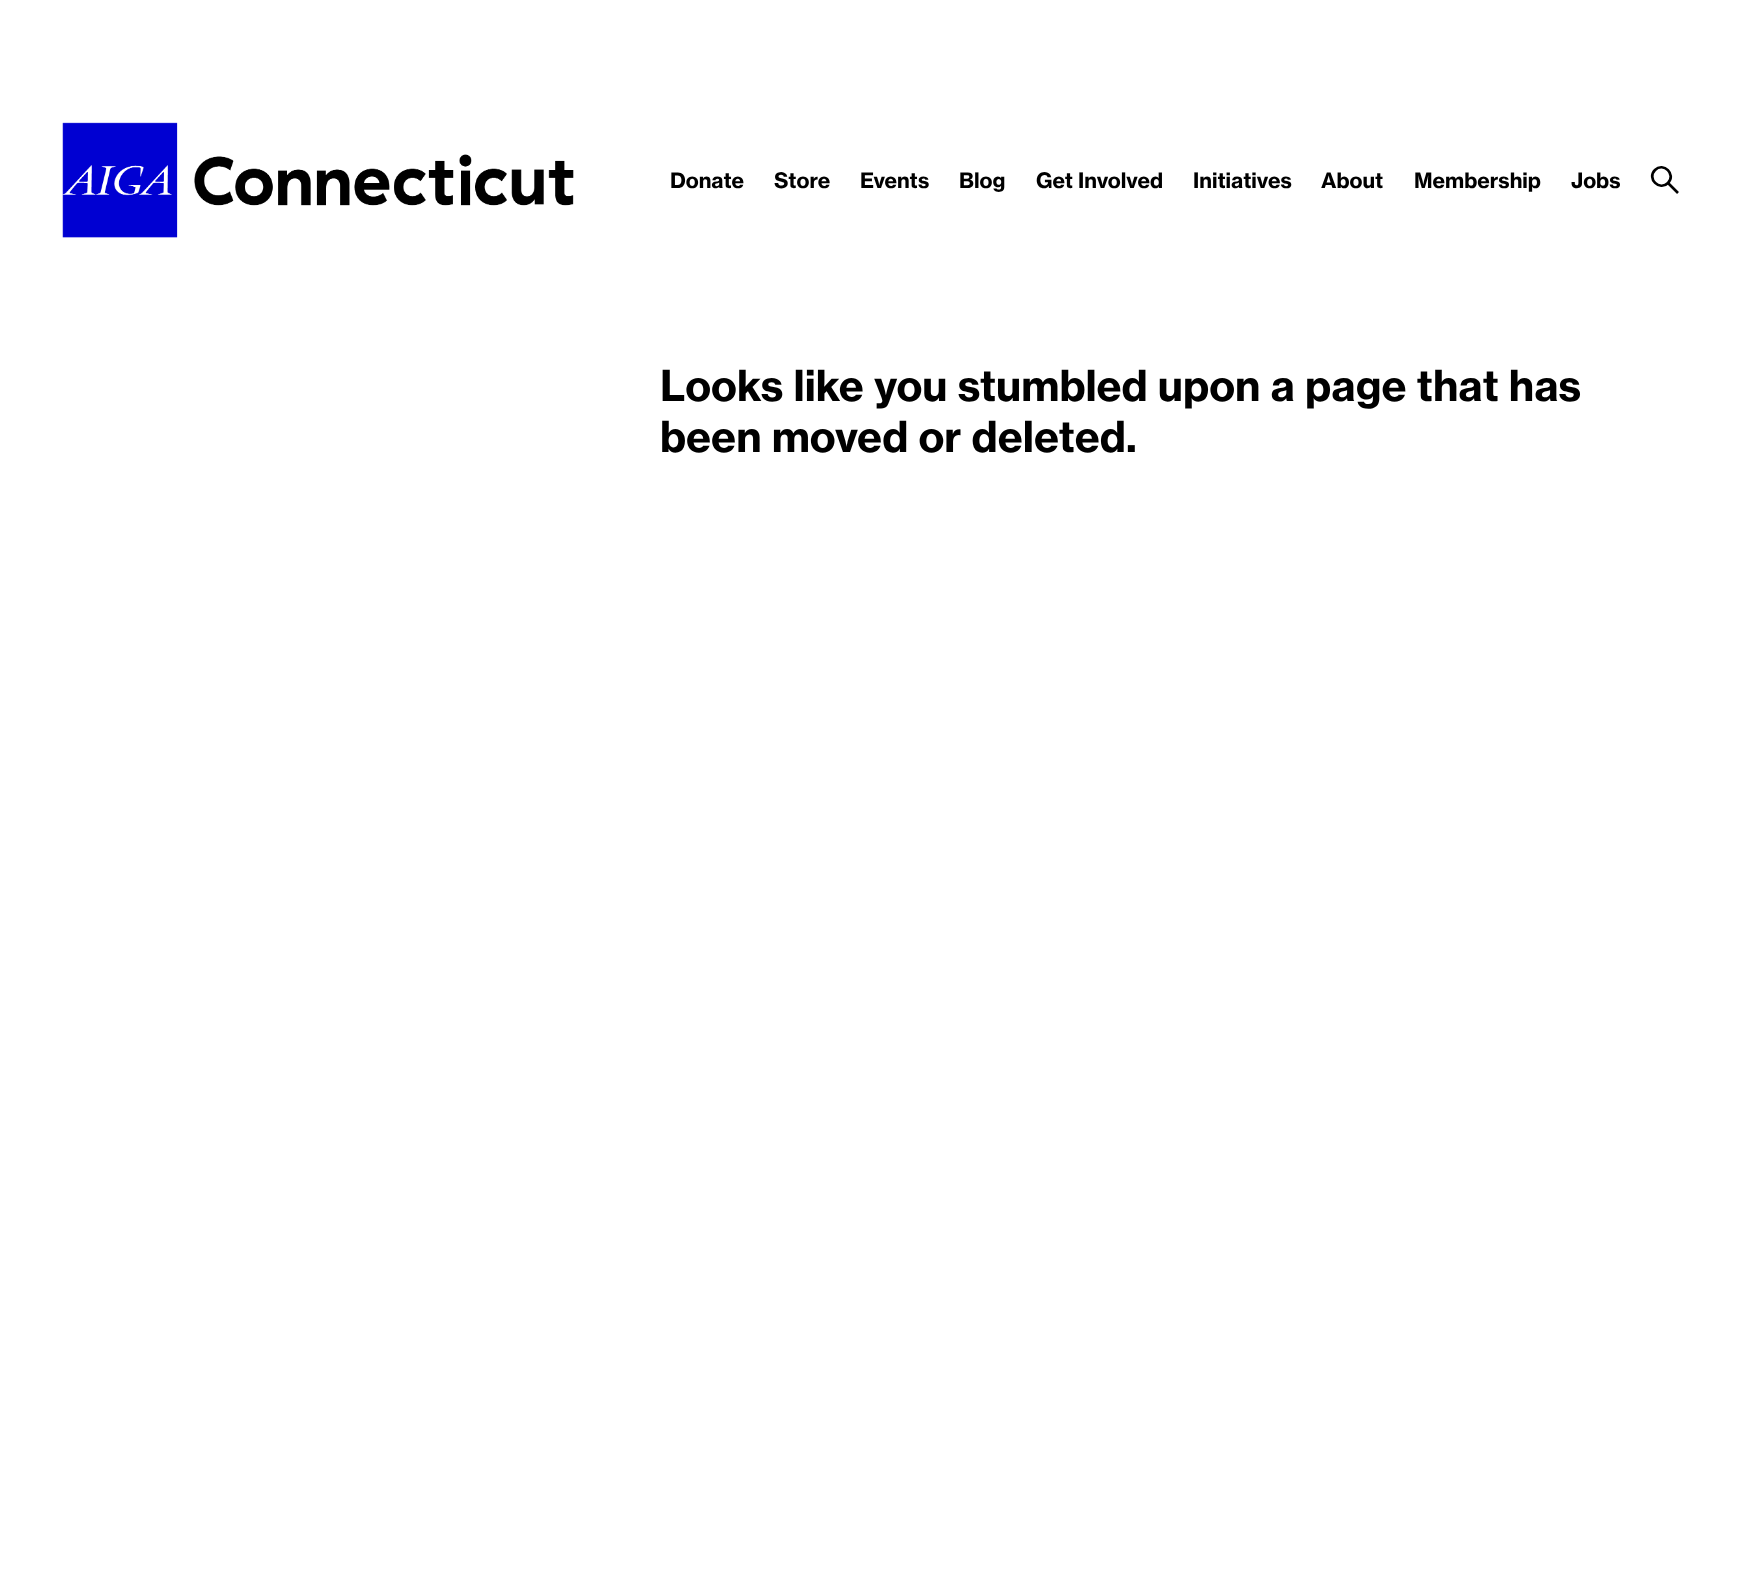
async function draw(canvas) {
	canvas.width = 1740;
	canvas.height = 1579;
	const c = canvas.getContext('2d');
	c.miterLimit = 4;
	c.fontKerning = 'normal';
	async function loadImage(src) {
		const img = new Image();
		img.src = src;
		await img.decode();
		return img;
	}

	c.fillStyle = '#fff';
	c.fillRect(0, 0, 1740, 1579);
	c.drawImage(await loadImage('img1.png'), 62, 122, 512, 116);
	c.font = 'bold 21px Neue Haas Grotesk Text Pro';
	c.fillStyle = '#000';
	for (const [text, x, y] of [
		['Donate', 670, 188],
		['Store', 774, 188],
		['Events', 860, 188],
		['Blog', 959, 188],
		['Get Involved', 1036, 188],
		['Initiatives', 1193, 188],
		['About', 1321, 188],
		['Membership', 1414, 188],
		['Jobs', 1571, 188],
	]) {
		c.fillText(text, x, y);
	}
	c.beginPath();
	c.moveTo(1655, 170);
	c.bezierCurveTo(1663.5, 161.5, 1676.5, 174.5, 1668, 183);
	c.bezierCurveTo(1659.5, 191.5, 1646.5, 178.5, 1655, 170);
	c.closePath();
	c.strokeStyle = '#000';
	c.lineWidth = 2.7;
	c.lineCap = 'round';
	c.lineJoin = 'round';
	c.stroke();
	c.beginPath();
	c.moveTo(1668.5, 183.5);
	c.lineTo(1678, 193);
	c.lineCap = 'butt';
	c.stroke();
	c.font = 'bold 42px Neue Haas Grotesk Text Pro';
	c.fillText('Looks like you stumbled upon a page that has', 660, 401);
	c.fillText('been moved or deleted.', 660, 452);
}

draw(document.querySelector('canvas'));
